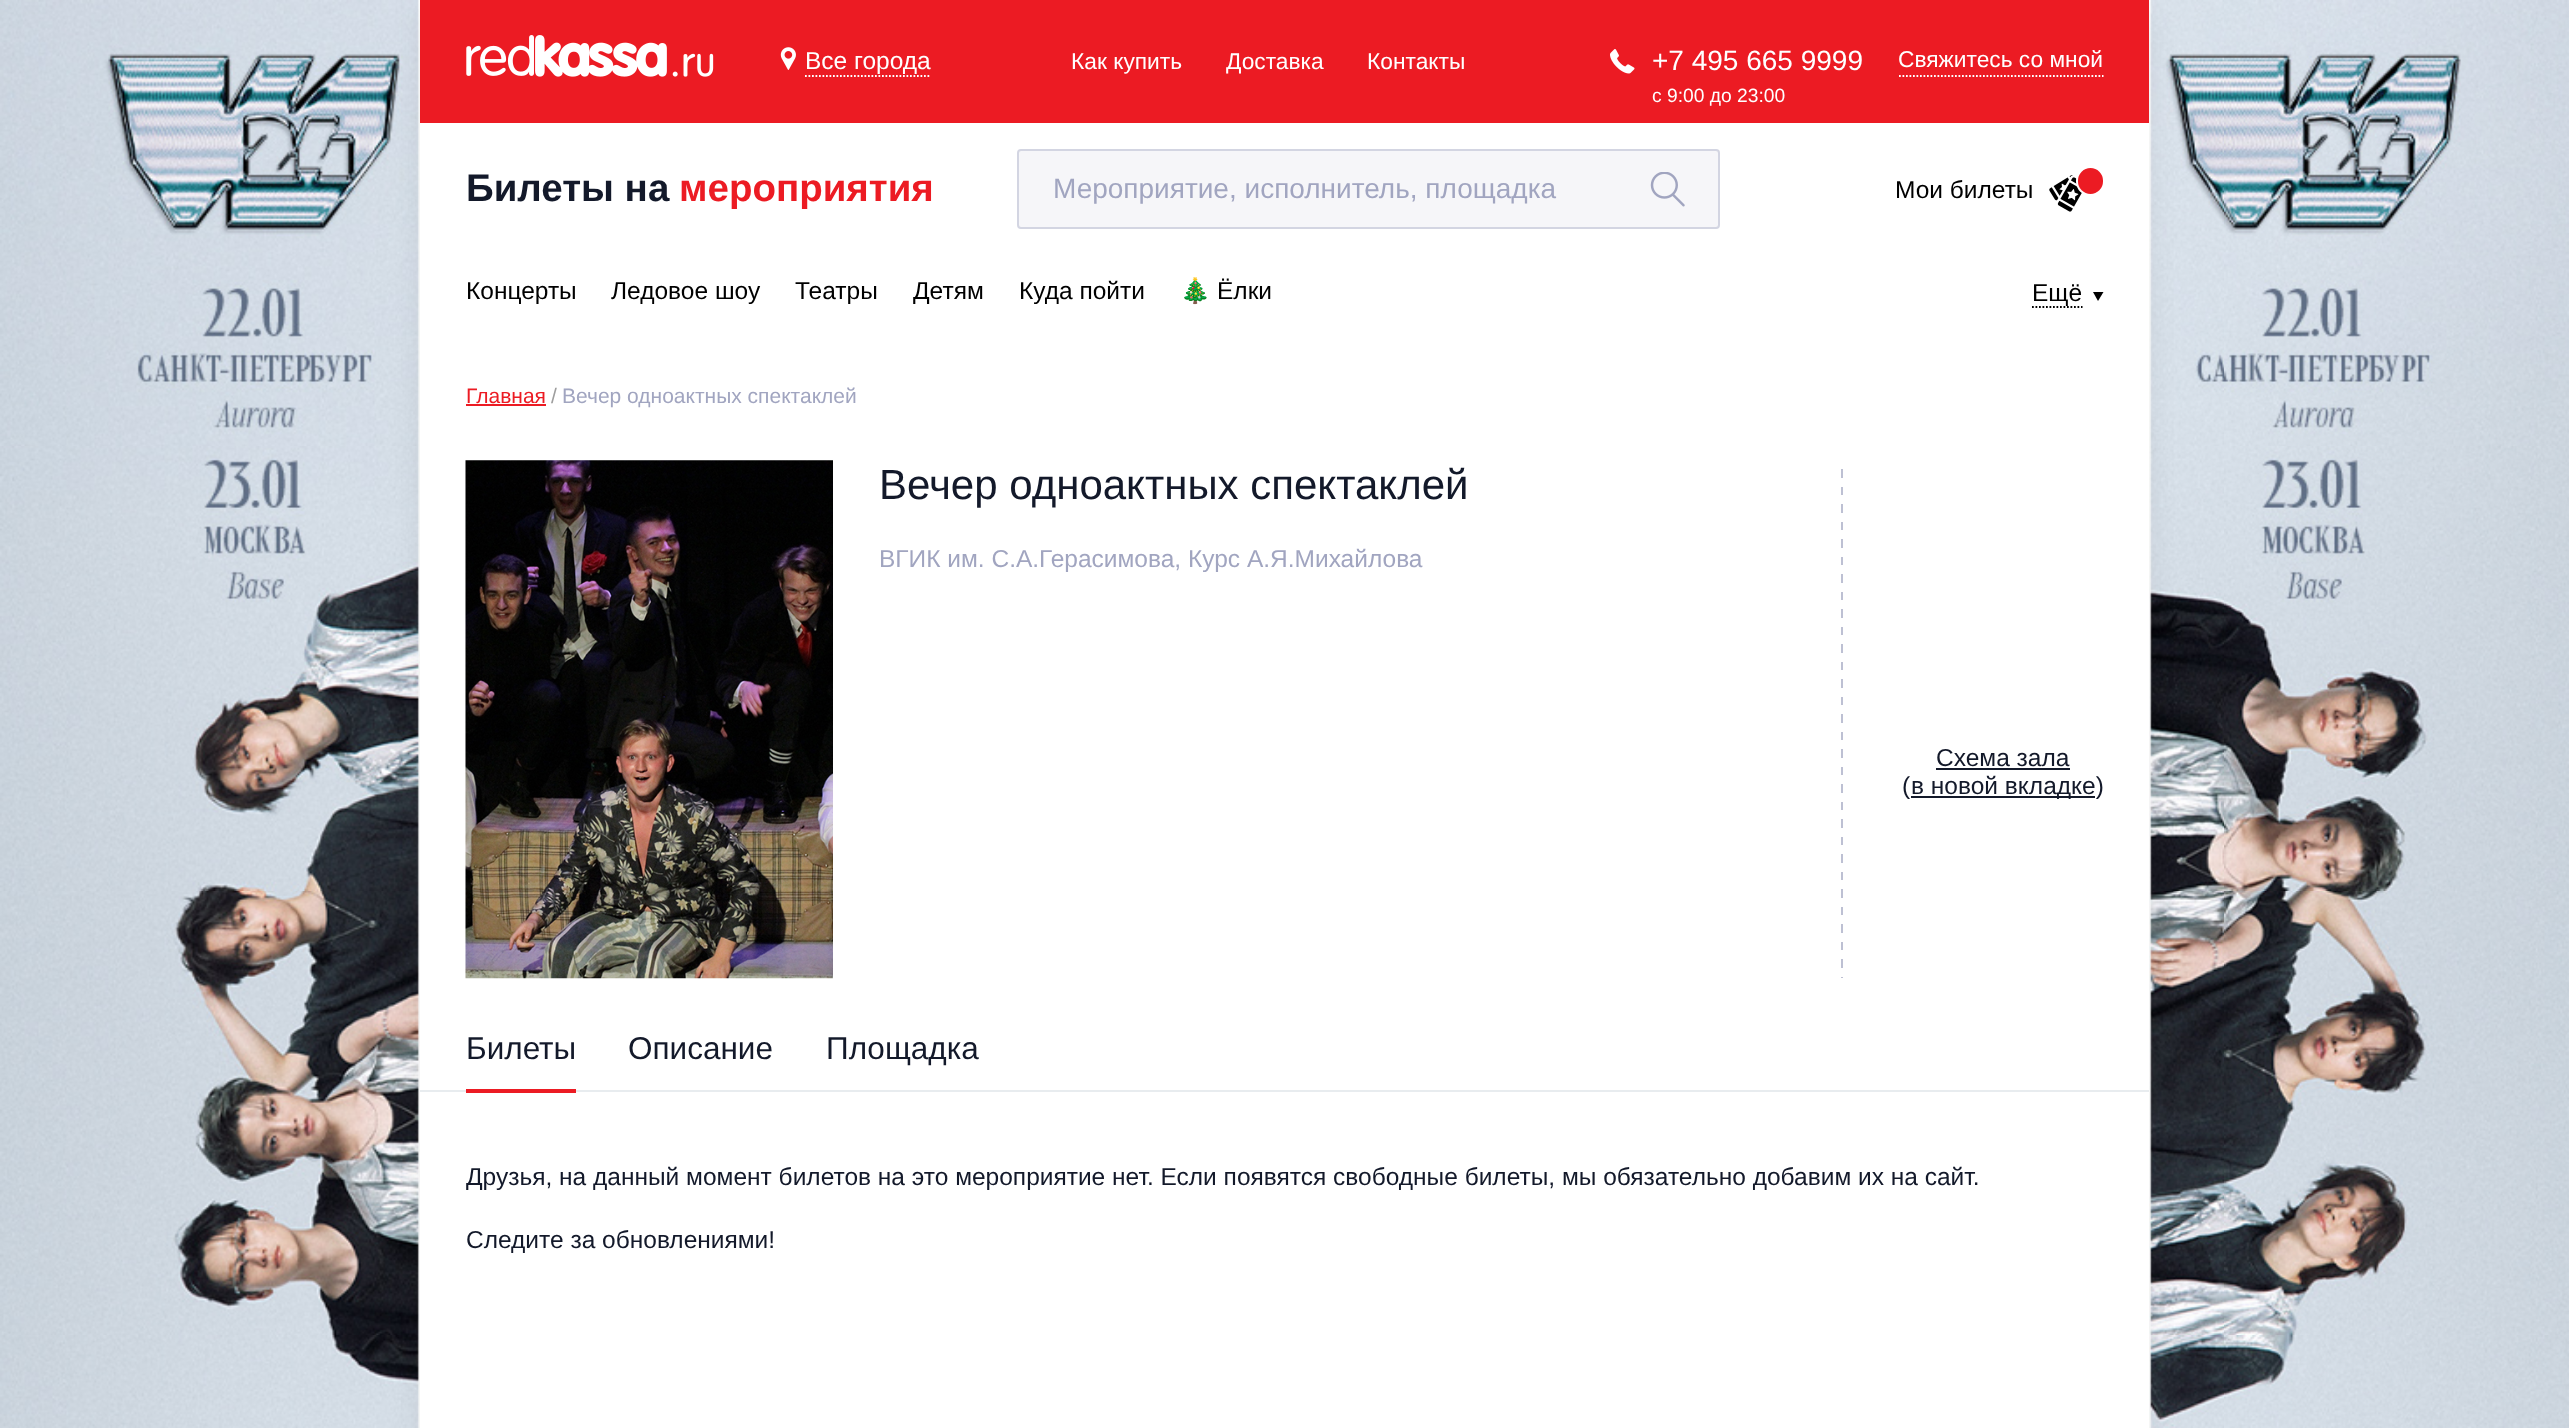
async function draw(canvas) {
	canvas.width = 2569;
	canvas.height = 1428;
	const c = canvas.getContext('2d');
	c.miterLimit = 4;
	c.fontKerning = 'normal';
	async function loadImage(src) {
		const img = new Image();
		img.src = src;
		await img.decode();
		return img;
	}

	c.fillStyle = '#fff';
	c.fillRect(0, 0, 2569, 1428);
	c.drawImage(await loadImage('img1.png'), 0, 0, 2569, 1428);
	c.fillStyle = '#00000012';
	c.filter = 'blur(14px)';
	c.beginPath();
	c.rect(420, 11, 1729, 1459);
	c.fill();
	c.filter = 'none';
	c.fillStyle = '#fff';
	c.fillRect(420, 123, 1729, 1305);
	c.fillStyle = '#ec1b23';
	c.fillRect(420, 0, 1729, 123);
	c.drawImage(await loadImage('img2.png'), 466, 35, 248, 42);
	c.drawImage(await loadImage('img3.png'), 780, 47, 16, 23);
	c.beginPath();
	c.moveTo(805, 76);
	c.lineTo(931, 76);
	c.strokeStyle = '#fff';
	c.lineWidth = 1.8;
	c.setLineDash([1.75, 1.75]);
	c.stroke();
	c.font = '24.5px Liberation Sans';
	c.fillStyle = '#fff';
	c.fillText('Все города', 805, 69);
	c.font = '22.75px Liberation Sans';
	for (const [text, x, y] of [
		['Как купить', 1071, 69],
		['Доставка', 1226, 69],
		['Контакты', 1367, 69],
	]) {
		c.fillText(text, x, y);
	}
	c.drawImage(await loadImage('img4.png'), 1610, 49, 25, 25);
	c.font = '28px Liberation Sans';
	c.fillText('+7 495 665 9999', 1652, 70);
	c.font = '19.25px Liberation Sans';
	c.fillText('с 9:00 до 23:00', 1652, 102);
	c.beginPath();
	c.moveTo(1899, 76);
	c.lineTo(2103.5, 76);
	c.stroke();
	c.font = '22.75px Liberation Sans';
	c.fillText('Свяжитесь со мной', 1898, 67);
	c.font = 'bold 38.5px Liberation Sans';
	c.fillStyle = '#13192a';
	c.fillText('Билеты на', 466, 201);
	c.fillStyle = '#ec1b23';
	c.fillText('мероприятия', 679, 201);
	c.fillStyle = '#f6f6f9';
	c.beginPath();
	c.roundRect(1017, 149, 703, 80, 4);
	c.fill();
	c.beginPath();
	c.roundRect(1018, 150, 701, 78, 3);
	c.strokeStyle = '#a1a5c066';
	c.lineWidth = 2;
	c.setLineDash([]);
	c.stroke();
	c.font = '28px Liberation Sans';
	c.fillStyle = '#a1a5c0';
	c.fillText('Мероприятие, исполнитель, площадка', 1053, 198);
	c.drawImage(await loadImage('img5.png'), 1650, 172, 35, 35);
	c.font = '24.5px Liberation Sans';
	c.fillStyle = '#000';
	c.fillText('Мои билеты', 1895, 198);
	c.drawImage(await loadImage('img6.png'), 2049, 175, 33, 37);
	c.fillStyle = '#ec1b23';
	c.beginPath();
	c.roundRect(2077, 167, 27, 28, 13.5);
	c.fill();
	c.strokeStyle = '#fff';
	c.stroke();
	c.fillStyle = '#000';
	for (const [text, x, y] of [
		['Концерты', 466, 299],
		['Ледовое шоу', 611, 299],
		['Театры', 795, 299],
		['Детям', 913, 299],
		['Куда пойти', 1019, 299],
	]) {
		c.fillText(text, x, y);
	}
	c.font = '24.5px Noto Color Emoji';
	c.fillText('🎄', 1180, 299);
	c.font = '24.5px Liberation Sans';
	c.fillText('Ёлки', 1217, 299);
	c.beginPath();
	c.moveTo(2032, 307);
	c.lineTo(2082.5, 307);
	c.strokeStyle = '#000';
	c.lineWidth = 1.8;
	c.setLineDash([1.75, 1.75]);
	c.stroke();
	c.fillText('Ещё', 2032, 301);
	c.beginPath();
	c.moveTo(2093, 292);
	c.lineTo(2103.5, 292);
	c.lineTo(2098, 301);
	c.closePath();
	c.fill();
	c.font = '21px Liberation Sans';
	c.fillStyle = '#ec1b23';
	c.fillText('Главная', 466, 403);
	c.fillRect(466, 404, 80, 2);
	c.fillStyle = '#9e9e9e';
	c.fillText('/', 551, 403);
	c.fillStyle = '#a1a5c0';
	c.fillText('Вечер одноактных спектаклей', 562, 403);
	c.drawImage(await loadImage('img7.png'), 465, 460, 368, 519);
	c.font = '42px Liberation Sans';
	c.fillStyle = '#13192a';
	c.fillText('Вечер одноактных спектаклей', 879, 499);
	c.font = '24.5px Liberation Sans';
	c.fillStyle = '#a1a5c0';
	c.fillText('ВГИК им. С.А.Герасимова, Курс А.Я.Михайлова', 879, 567);
	c.drawImage(await loadImage('img8.png'), 1841, 469, 2, 509);
	c.fillStyle = '#13192a';
	c.fillText('Cхема зала', 1936, 766);
	c.fillRect(1936, 768, 134, 2);
	c.fillText('(', 1902, 794);
	c.fillRect(1911, 796, 184, 2);
	c.fillText('в новой вкладке)', 1911, 794);
	c.fillStyle = '#e8ecef';
	c.fillRect(420, 1090, 1729, 2);
	c.fillStyle = '#ec1b23';
	c.fillRect(466, 1089, 110, 4);
	c.font = '31.5px Liberation Sans';
	c.fillStyle = '#13192a';
	for (const [text, x, y] of [
		['Билеты', 466, 1059],
		['Описание', 628, 1059],
		['Площадка', 826, 1059],
	]) {
		c.fillText(text, x, y);
	}
	c.font = '24.5px Liberation Sans';
	c.fillText('Друзья, на данный момент билетов на это мероприятие нет. Если появятся свободные билеты, мы обязательно добавим их на сайт.', 466, 1185);
	c.fillText('Следите за обновлениями!', 466, 1248);
}

draw(document.querySelector('canvas'));
